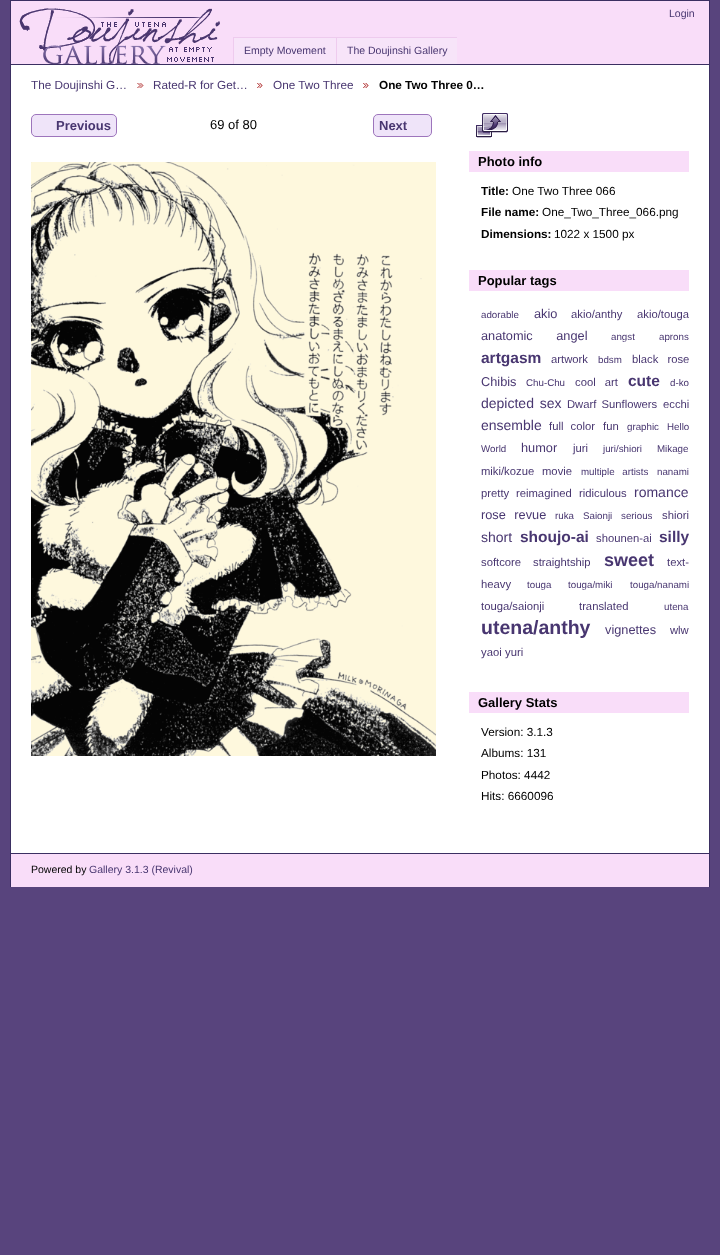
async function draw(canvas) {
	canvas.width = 720;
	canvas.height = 1255;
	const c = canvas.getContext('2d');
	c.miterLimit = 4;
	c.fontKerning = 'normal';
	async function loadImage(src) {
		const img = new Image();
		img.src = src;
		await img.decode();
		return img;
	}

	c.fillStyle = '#58447d';
	c.fillRect(0, 0, 720, 1255);
	for (const [x, y, w, h, color] of [
		[11, 65, 698, 788, '#fff'],
		[10, 0, 700, 1, '#3b2f62'],
		[709, 0, 1, 887, '#3b2f62'],
		[10, 0, 1, 887, '#3b2f62'],
		[11, 1, 698, 63, '#f9ddf9'],
		[11, 64, 698, 1, '#3b2f62'],
	]) {
		c.fillStyle = color;
		c.fillRect(x, y, w, h);
	}
	c.drawImage(await loadImage('img1.png'), 19, 8, 201, 56);
	c.font = '10.5px Liberation Sans';
	c.fillStyle = '#483670';
	c.fillText('Login', 669, 17);
	for (const [x, y, w, h, color] of [
		[234, 38, 102, 26, '#f7e4f9'],
		[233, 37, 224, 1, '#eecbee'],
		[233, 37, 1, 27, '#eecbee'],
	]) {
		c.fillStyle = color;
		c.fillRect(x, y, w, h);
	}
	c.fillStyle = '#483670';
	c.fillText('Empty Movement', 244, 54);
	c.fillStyle = '#f7e4f9';
	c.fillRect(337, 38, 120, 26);
	c.fillStyle = '#eecbee';
	c.fillRect(336, 37, 1, 27);
	c.fillStyle = '#483670';
	c.fillText('The Doujinshi Gallery', 347, 54);
	c.font = '11.75px Liberation Sans';
	c.fillText('The Doujinshi G…', 31, 89);
	c.drawImage(await loadImage('img2.png'), 137, 83, 7, 5);
	c.fillText('Rated-R for Get…', 153, 89);
	c.drawImage(await loadImage('img3.png'), 257, 83, 6, 5);
	c.fillText('One Two Three', 273, 89);
	c.drawImage(await loadImage('img3.png'), 363, 83, 6, 5);
	c.font = 'bold 11.75px Liberation Sans';
	c.fillStyle = '#000';
	c.fillText('One Two Three 0…', 379, 89);
	c.fillStyle = '#efe4f9';
	c.beginPath();
	c.roundRect(31.5, 114.5, 85, 22, 4.5);
	c.fill();
	c.strokeStyle = '#9d75bc';
	c.stroke();
	c.font = 'bold 13px Liberation Sans';
	c.fillStyle = '#483670';
	c.fillText('Previous', 56, 130);
	c.font = '13px Liberation Sans';
	c.fillStyle = '#000';
	c.fillText('69 of 80', 210, 129);
	c.fillStyle = '#efe4f9';
	c.beginPath();
	c.roundRect(373.5, 114.5, 58, 22, 4.5);
	c.fill();
	c.stroke();
	c.font = 'bold 13px Liberation Sans';
	c.fillStyle = '#483670';
	c.fillText('Next', 379, 130);
	c.drawImage(await loadImage('img4.png'), 31, 162, 405, 594);
	c.drawImage(await loadImage('img5.png'), 476, 113, 32, 25);
	c.fillStyle = '#f9ddf9';
	c.fillRect(469, 151, 220, 21);
	c.fillStyle = '#000';
	c.fillText('Photo info', 478, 166);
	c.font = 'bold 11.75px Liberation Sans';
	c.fillText('Title:', 481, 195);
	c.font = '11.75px Liberation Sans';
	c.fillText('One Two Three 066', 512, 195);
	c.font = 'bold 11.75px Liberation Sans';
	c.fillText('File name:', 481, 216);
	c.font = '11.75px Liberation Sans';
	c.fillText('One_Two_Three_066.png', 542, 216);
	c.font = 'bold 11.75px Liberation Sans';
	c.fillText('Dimensions:', 481, 238);
	c.font = '11.75px Liberation Sans';
	c.fillText('1022 x 1500 px', 554, 238);
	c.fillStyle = '#f9ddf9';
	c.fillRect(469, 270, 220, 21);
	c.font = 'bold 13px Liberation Sans';
	c.fillStyle = '#000';
	c.fillText('Popular tags', 478, 285);
	c.font = '9.75px Liberation Sans';
	c.fillStyle = '#483670';
	c.fillText('adorable', 481, 318);
	c.font = '12.75px Liberation Sans';
	c.fillText('akio', 534, 318);
	c.font = '11.25px Liberation Sans';
	c.fillText('akio/anthy', 571, 318);
	c.fillText('akio/touga', 637, 318);
	c.wordSpacing = '20px';
	c.font = '12.75px Liberation Sans';
	c.fillText('anatomic angel', 481, 340);
	c.wordSpacing = '0px';
	c.font = '9.75px Liberation Sans';
	c.fillText('angst', 611, 340);
	c.fillText('aprons', 659, 340);
	c.font = 'bold 15.5px Liberation Sans';
	c.fillText('artgasm', 481, 363);
	c.font = '11.25px Liberation Sans';
	c.fillText('artwork', 551, 363);
	c.font = '9.75px Liberation Sans';
	c.fillText('bdsm', 598, 363);
	c.wordSpacing = '6px';
	c.font = '11.25px Liberation Sans';
	c.fillText('black rose', 632, 363);
	c.wordSpacing = '0px';
	c.font = '12.75px Liberation Sans';
	c.fillText('Chibis', 481, 386);
	c.font = '9.75px Liberation Sans';
	c.fillText('Chu-Chu', 526, 386);
	c.wordSpacing = '6px';
	c.font = '11.25px Liberation Sans';
	c.fillText('cool art', 575, 386);
	c.wordSpacing = '0px';
	c.font = 'bold 15.5px Liberation Sans';
	c.fillText('cute', 628, 386);
	c.font = '9.75px Liberation Sans';
	c.fillText('d-ko', 670, 386);
	c.wordSpacing = '2px';
	c.font = '14px Liberation Sans';
	c.fillText('depicted sex', 481, 408);
	c.font = '11.25px Liberation Sans';
	c.fillText('Dwarf Sunflowers', 567, 408);
	c.wordSpacing = '0px';
	c.fillText('ecchi', 663, 408);
	c.font = '14px Liberation Sans';
	c.fillText('ensemble', 481, 430);
	c.wordSpacing = '4px';
	c.font = '11.25px Liberation Sans';
	c.fillText('full color', 549, 430);
	c.wordSpacing = '0px';
	c.fillText('fun', 603, 430);
	c.font = '9.75px Liberation Sans';
	for (const [text, x, y] of [
		['graphic', 627, 430],
		['Hello', 667, 430],
		['World', 481, 452],
	]) {
		c.fillText(text, x, y);
	}
	c.font = '12.75px Liberation Sans';
	c.fillText('humor', 521, 452);
	c.font = '11.25px Liberation Sans';
	c.fillText('juri', 573, 452);
	c.font = '9.75px Liberation Sans';
	c.fillText('juri/shiori', 603, 452);
	c.fillText('Mikage', 657, 452);
	c.font = '11.25px Liberation Sans';
	c.fillText('miki/kozue', 481, 475);
	c.fillText('movie', 542, 475);
	c.wordSpacing = '5px';
	c.font = '9.75px Liberation Sans';
	c.fillText('multiple artists', 581, 475);
	c.wordSpacing = '0px';
	c.fillText('nanami', 657, 475);
	c.font = '11.25px Liberation Sans';
	for (const [text, x, y] of [
		['pretty', 481, 497],
		['reimagined', 516, 497],
		['ridiculous', 579, 497],
	]) {
		c.fillText(text, x, y);
	}
	c.font = '14px Liberation Sans';
	c.fillText('romance', 634, 497);
	c.wordSpacing = '5px';
	c.font = '12.75px Liberation Sans';
	c.fillText('rose revue', 481, 519);
	c.wordSpacing = '0px';
	c.font = '9.75px Liberation Sans';
	for (const [text, x, y] of [
		['ruka', 555, 519],
		['Saionji', 583, 519],
		['serious', 621, 519],
	]) {
		c.fillText(text, x, y);
	}
	c.font = '11.25px Liberation Sans';
	c.fillText('shiori', 662, 519);
	c.font = '14px Liberation Sans';
	c.fillText('short', 481, 542);
	c.font = 'bold 15.5px Liberation Sans';
	c.fillText('shoujo-ai', 520, 542);
	c.font = '11.25px Liberation Sans';
	c.fillText('shounen-ai', 596, 542);
	c.font = 'bold 15.5px Liberation Sans';
	c.fillText('silly', 659, 542);
	c.font = '11.25px Liberation Sans';
	c.fillText('softcore', 481, 566);
	c.fillText('straightship', 533, 566);
	c.font = 'bold 18px Liberation Sans';
	c.fillText('sweet', 604, 566);
	c.font = '11.25px Liberation Sans';
	c.fillText('text-', 667, 566);
	c.fillText('heavy', 481, 588);
	c.font = '9.75px Liberation Sans';
	for (const [text, x, y] of [
		['touga', 527, 588],
		['touga/miki', 568, 588],
		['touga/nanami', 630, 588],
	]) {
		c.fillText(text, x, y);
	}
	c.font = '11.25px Liberation Sans';
	c.fillText('touga/saionji', 481, 610);
	c.fillText('translated', 579, 610);
	c.font = '9.75px Liberation Sans';
	c.fillText('utena', 664, 610);
	c.font = 'bold 19.5px Liberation Sans';
	c.fillText('utena/anthy', 481, 634);
	c.font = '12.75px Liberation Sans';
	c.fillText('vignettes', 605, 634);
	c.font = '11.25px Liberation Sans';
	for (const [text, x, y] of [
		['wlw', 670, 634],
		['yaoi', 481, 656],
		['yuri', 505, 656],
	]) {
		c.fillText(text, x, y);
	}
	c.fillStyle = '#f9ddf9';
	c.fillRect(469, 692, 220, 21);
	c.font = 'bold 13px Liberation Sans';
	c.fillStyle = '#000';
	c.fillText('Gallery Stats', 478, 707);
	c.font = '11.75px Liberation Sans';
	for (const [text, x, y] of [
		['Version: 3.1.3', 481, 736],
		['Albums: 131', 481, 757],
		['Photos: 4442', 481, 779],
		['Hits: 6660096', 481, 800],
	]) {
		c.fillText(text, x, y);
	}
	c.fillStyle = '#f9ddf9';
	c.fillRect(11, 854, 698, 33);
	c.fillStyle = '#3b2f62';
	c.fillRect(11, 853, 698, 1);
	c.font = '10.5px Liberation Sans';
	c.fillStyle = '#000';
	c.fillText('Powered by', 31, 873);
	c.fillStyle = '#483670';
	c.fillText('Gallery 3.1.3 (Revival)', 89, 873);
}

draw(document.querySelector('canvas'));
